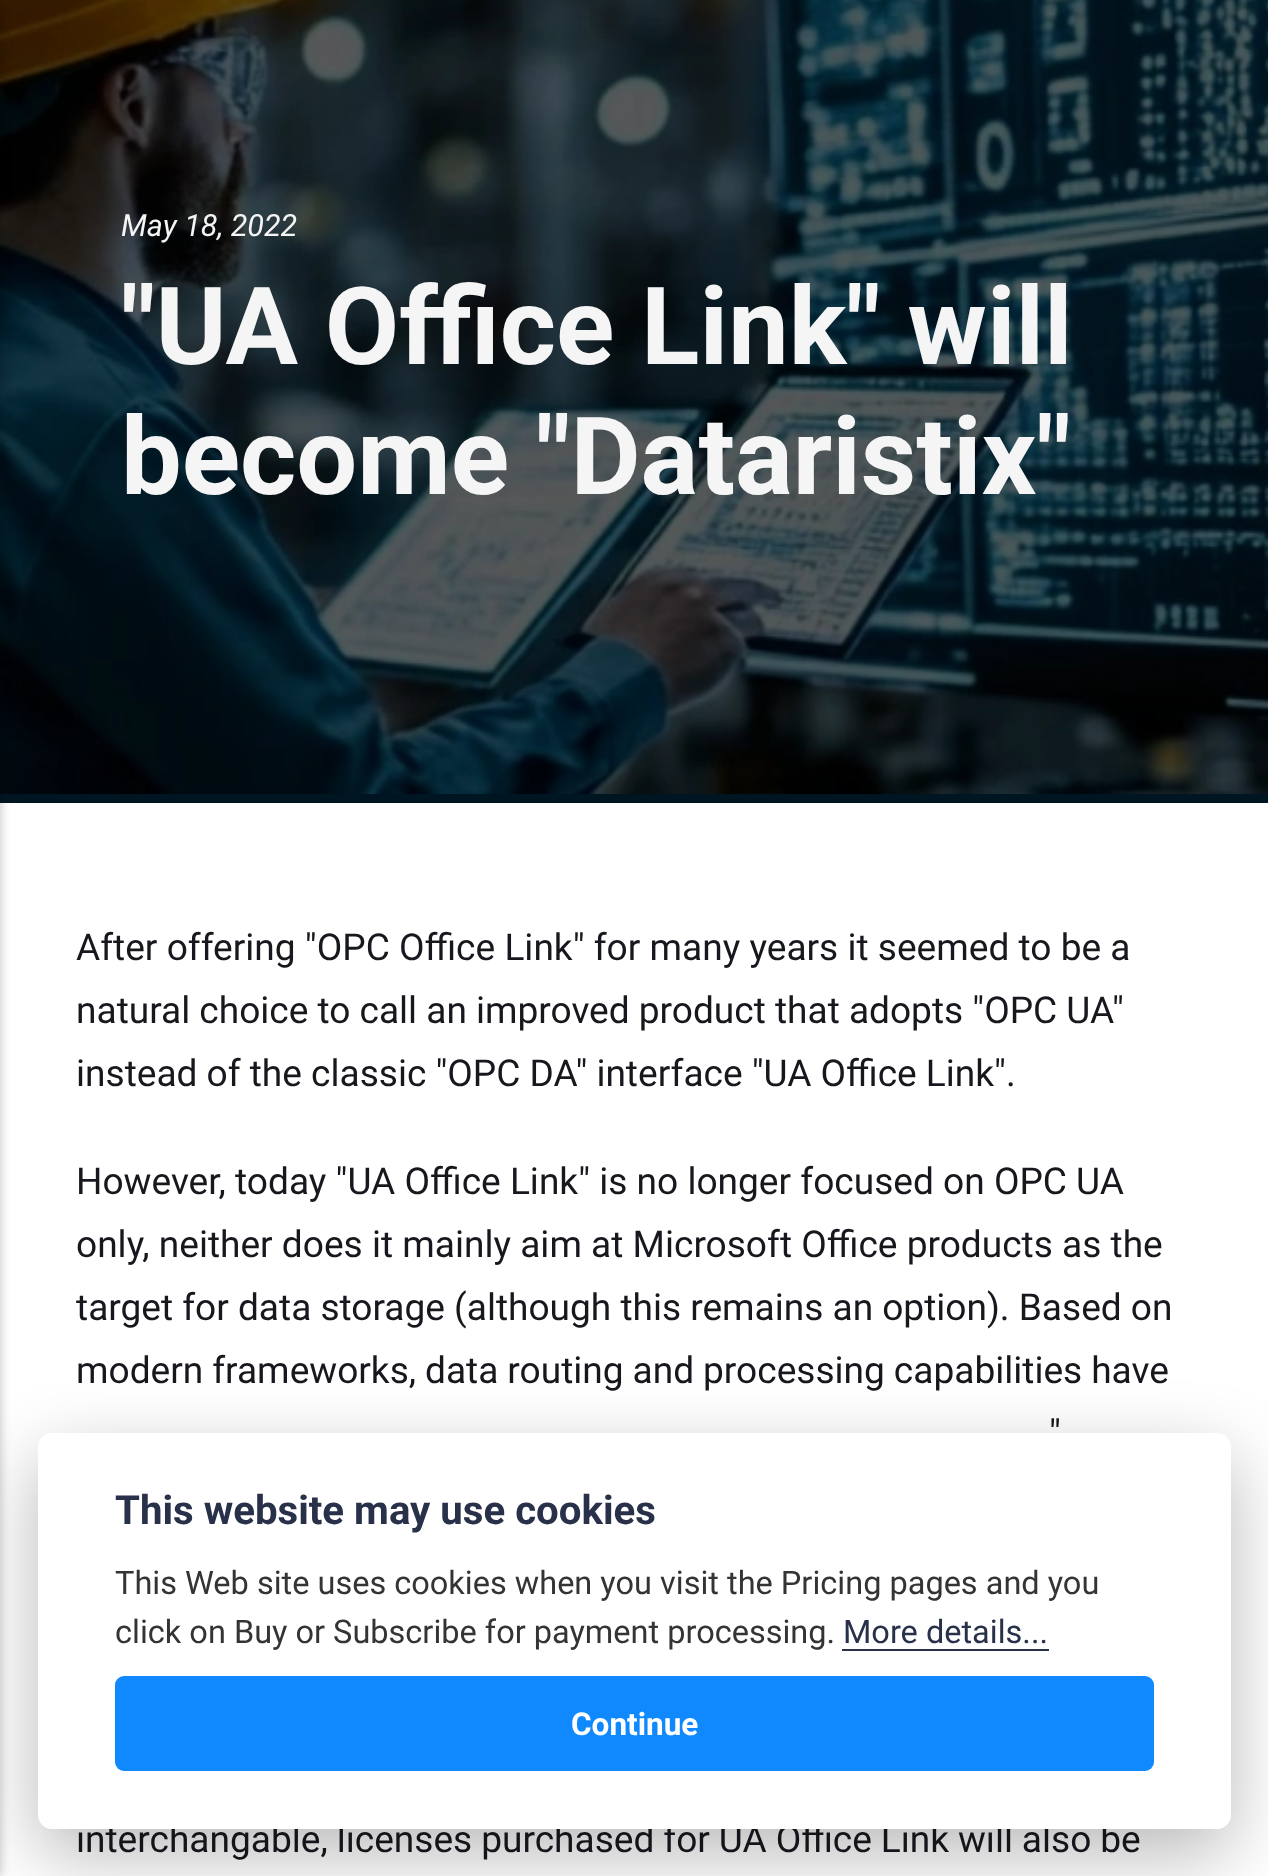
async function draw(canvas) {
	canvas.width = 1268;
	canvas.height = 1876;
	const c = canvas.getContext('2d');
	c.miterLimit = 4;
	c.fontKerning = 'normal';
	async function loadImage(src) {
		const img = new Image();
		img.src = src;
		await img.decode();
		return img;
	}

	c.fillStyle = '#fff';
	c.fillRect(0, 0, 1268, 1876);
	c.fillStyle = '#001522';
	c.fillRect(0, 794, 1268, 9);
	c.drawImage(await loadImage('img1.png'), 0, 0, 1268, 794);
	c.fillStyle = '#00000040';
	c.filter = 'blur(5.5px)';
	c.beginPath();
	c.rect(-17, 0, 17, 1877);
	c.fill();
	c.filter = 'none';
	c.font = 'italic 30.5px Roboto';
	c.fillStyle = '#f5f5f5';
	c.fillText('May 18, 2022', 121, 236);
	c.font = 'bold 108px Roboto';
	c.fillText('"UA Office Link" will', 121, 364);
	c.fillText('become "Dataristix"', 121, 494);
	c.font = '37.1px Roboto';
	c.fillStyle = '#17181e';
	c.fillText('After offering "OPC Office Link" for many years it seemed to be a', 76, 960);
	c.wordSpacing = '-0.1px';
	c.fillText('natural choice to call an improved product that adopts "OPC UA"', 76, 1023);
	c.fillText('instead of the classic "OPC DA" interface "UA Office Link".', 76, 1086);
	c.wordSpacing = '0px';
	c.fillText('However, today "UA Office Link" is no longer focused on OPC UA', 76, 1194);
	c.fillText('only, neither does it mainly aim at Microsoft Office products as the', 76, 1257);
	c.wordSpacing = '-0.1px';
	c.fillText('target for data storage (although this remains an option). Based on', 76, 1320);
	c.wordSpacing = '-0.25px';
	c.fillText('modern frameworks, data routing and processing capabilities have', 76, 1383);
	c.wordSpacing = '-0.1px';
	c.fillText('"', 1049, 1446);
	c.wordSpacing = '-0.25px';
	c.fillText('interchangable, licenses purchased for UA Office Link will also be', 76, 1852);
	c.fillStyle = '#02020347';
	c.filter = 'blur(36px)';
	c.beginPath();
	c.roundRect(38, 1458, 1193, 396, 14);
	c.fill();
	c.filter = 'none';
	c.fillStyle = '#fff';
	c.beginPath();
	c.roundRect(38, 1433, 1193, 396, 14);
	c.fill();
	c.wordSpacing = '0px';
	c.font = 'bold 40.2px Roboto';
	c.fillStyle = '#283149';
	c.fillText('This website may use cookies', 115, 1524);
	c.font = '32.5px Roboto';
	c.fillStyle = '#343435';
	c.fillText('This Web site uses cookies when you visit the Pricing pages and you', 115, 1594);
	c.fillText('click on Buy or Subscribe for payment processing.', 115, 1643);
	c.fillStyle = '#283149';
	c.fillText('More details...', 843, 1643);
	c.fillRect(842, 1649, 207, 2);
	c.fillStyle = '#1089ff';
	c.beginPath();
	c.roundRect(115, 1676, 1039, 95, 9);
	c.fill();
	c.font = 'bold 31.5px Roboto';
	c.fillStyle = '#fff';
	c.fillText('Continue', 571, 1735);
}

draw(document.querySelector('canvas'));
